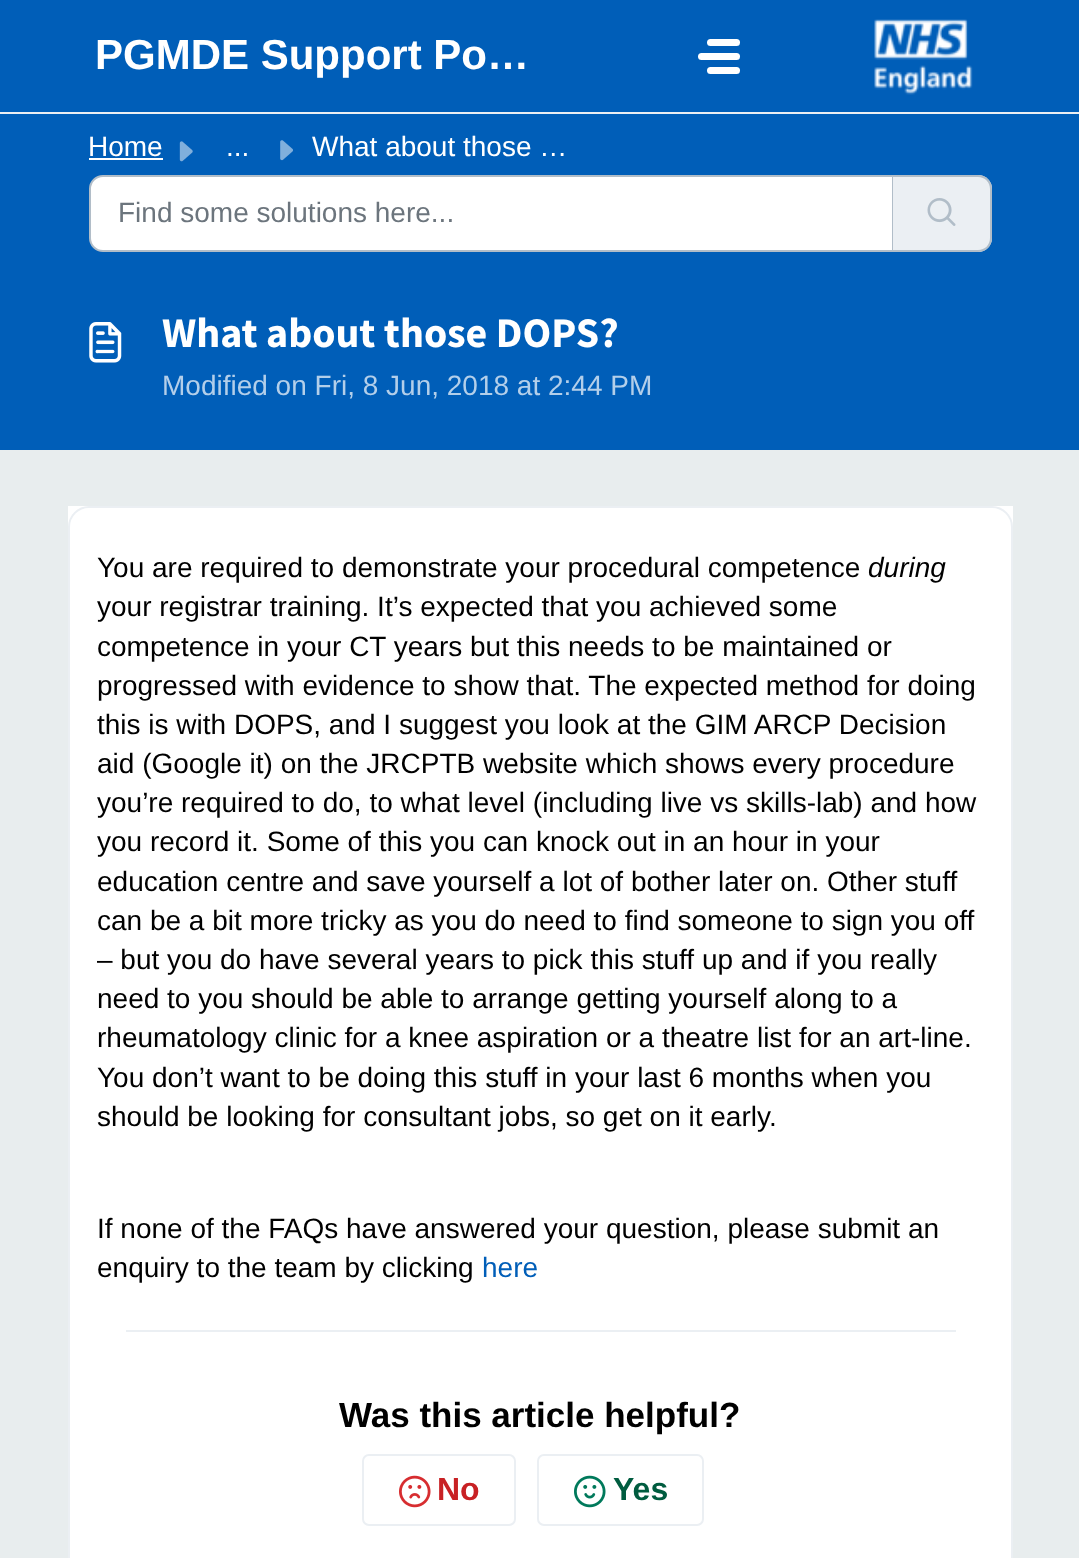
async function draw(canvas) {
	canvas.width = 1079;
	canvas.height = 1558;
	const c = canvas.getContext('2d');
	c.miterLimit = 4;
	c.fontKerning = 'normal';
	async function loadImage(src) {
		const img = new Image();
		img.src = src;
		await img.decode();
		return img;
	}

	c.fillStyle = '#e8edee';
	c.fillRect(0, 0, 1079, 1558);
	c.fillStyle = '#005eb8';
	c.fillRect(0, 0, 1079, 112);
	c.fillStyle = '#ebeff3';
	c.fillRect(0, 112, 1079, 2);
	c.font = 'bold 42px Liberation Sans';
	c.fillStyle = '#fff';
	c.fillText('PGMDE Support Po…', 95, 69);
	c.beginPath();
	c.roundRect(707, 39, 33, 7, 3.5);
	c.fill();
	c.beginPath();
	c.roundRect(698, 53, 42, 7, 3.5);
	c.fill();
	c.beginPath();
	c.roundRect(707, 67, 33, 7, 3.5);
	c.fill();
	c.drawImage(await loadImage('img1.png'), 874, 19, 99, 76);
	c.fillStyle = '#005eb8';
	c.fillRect(0, 114, 1079, 336);
	c.font = '28px Liberation Sans';
	c.fillStyle = '#fff';
	c.fillText('Home', 88, 156);
	c.fillRect(89, 158, 74, 2);
	c.drawImage(await loadImage('img2.png'), 179, 141, 14, 21);
	c.fillText('...', 226, 156);
	c.drawImage(await loadImage('img3.png'), 280, 140, 13, 21);
	c.fillText('What about those …', 312, 156);
	c.beginPath();
	c.roundRect(90, 176, 803, 75, [13, 0, 0, 13]);
	c.fill();
	c.strokeStyle = '#b1bdc8';
	c.lineWidth = 2;
	c.stroke();
	c.fillStyle = '#6c757d';
	c.fillText('Find some solutions here...', 118, 222);
	c.fillStyle = '#ebeff3';
	c.beginPath();
	c.roundRect(893, 175, 99, 77, [0, 14, 14, 0]);
	c.fill();
	c.fillStyle = '#b1bdc8';
	c.beginPath();
	c.moveTo(892, 175);
	c.lineTo(978, 175);
	c.bezierCurveTo(986, 175, 992, 181, 992, 189);
	c.lineTo(992, 238);
	c.bezierCurveTo(992, 246, 986, 252, 978, 252);
	c.lineTo(892, 252);
	c.closePath();
	c.moveTo(892, 177);
	c.lineTo(978, 177);
	c.bezierCurveTo(985, 177, 990, 182, 990, 189);
	c.lineTo(990, 238);
	c.bezierCurveTo(990, 245, 985, 250, 978, 250);
	c.lineTo(892, 250);
	c.closePath();
	c.fill('evenodd');
	c.drawImage(await loadImage('img4.png'), 927, 198, 29, 28);
	c.drawImage(await loadImage('img5.png'), 89, 322, 33, 41);
	c.font = 'bold 42px Source Sans Pro';
	c.fillStyle = '#fff';
	c.fillText('What about those DOPS?', 162, 347);
	c.font = '28px Liberation Sans';
	c.fillStyle = '#b3cfea';
	c.fillText('Modified on Fri, 8 Jun, 2018 at 2:44 PM', 162, 395);
	c.fillStyle = '#fff';
	c.fillRect(68, 506, 945, 1052);
	c.beginPath();
	c.roundRect(69, 507, 943, 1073, 20);
	c.strokeStyle = '#ebeff3';
	c.stroke();
	c.fillStyle = '#000';
	c.fillText('You are required to demonstrate your procedural competence', 97, 577);
	c.font = 'italic 28px Liberation Sans';
	c.fillText('during', 868, 577);
	c.font = '28px Liberation Sans';
	for (const [text, x, y] of [
		['your registrar training. It’s expected that you achieved some', 97, 616],
		['competence in your CT years but this needs to be maintained or', 97, 656],
		['progressed with evidence to show that. The expected method for doing', 97, 695],
		['this is with DOPS, and I suggest you look at the GIM ARCP Decision', 97, 734],
		['aid (Google it) on the JRCPTB website which shows every procedure', 97, 773],
		['you’re required to do, to what level (including live vs skills-lab) and how', 97, 812],
		['you record it. Some of this you can knock out in an hour in your', 97, 851],
		['education centre and save yourself a lot of bother later on. Other stuff', 97, 891],
		['can be a bit more tricky as you do need to find someone to sign you off', 97, 930],
		['– but you do have several years to pick this stuff up and if you really', 97, 969],
		['need to you should be able to arrange getting yourself along to a', 97, 1008],
		['rheumatology clinic for a knee aspiration or a theatre list for an art-line.', 97, 1047],
		['You don’t want to be doing this stuff in your last 6 months when you', 97, 1087],
		['should be looking for consultant jobs, so get on it early.', 97, 1126],
		['If none of the FAQs have answered your question, please submit an', 97, 1238],
		['enquiry to the team by clicking', 97, 1277],
	]) {
		c.fillText(text, x, y);
	}
	c.fillStyle = '#005eb8';
	c.fillText('here', 482, 1277);
	c.fillStyle = '#ebeff3';
	c.fillRect(126, 1330, 830, 2);
	c.font = 'bold 35px Liberation Sans';
	c.fillStyle = '#000';
	c.fillText('Was this article helpful?', 339, 1427);
	c.beginPath();
	c.roundRect(363, 1455, 152, 70, 6);
	c.stroke();
	c.drawImage(await loadImage('img6.png'), 399, 1475, 32, 33);
	c.font = 'bold 32px Liberation Sans';
	c.fillStyle = '#c82124';
	c.fillText('No', 437, 1500);
	c.beginPath();
	c.roundRect(538, 1455, 165, 70, 6);
	c.stroke();
	c.drawImage(await loadImage('img7.png'), 574, 1475, 32, 33);
	c.fillStyle = '#005c3f';
	c.fillText('Yes', 613, 1500);
}

draw(document.querySelector('canvas'));
